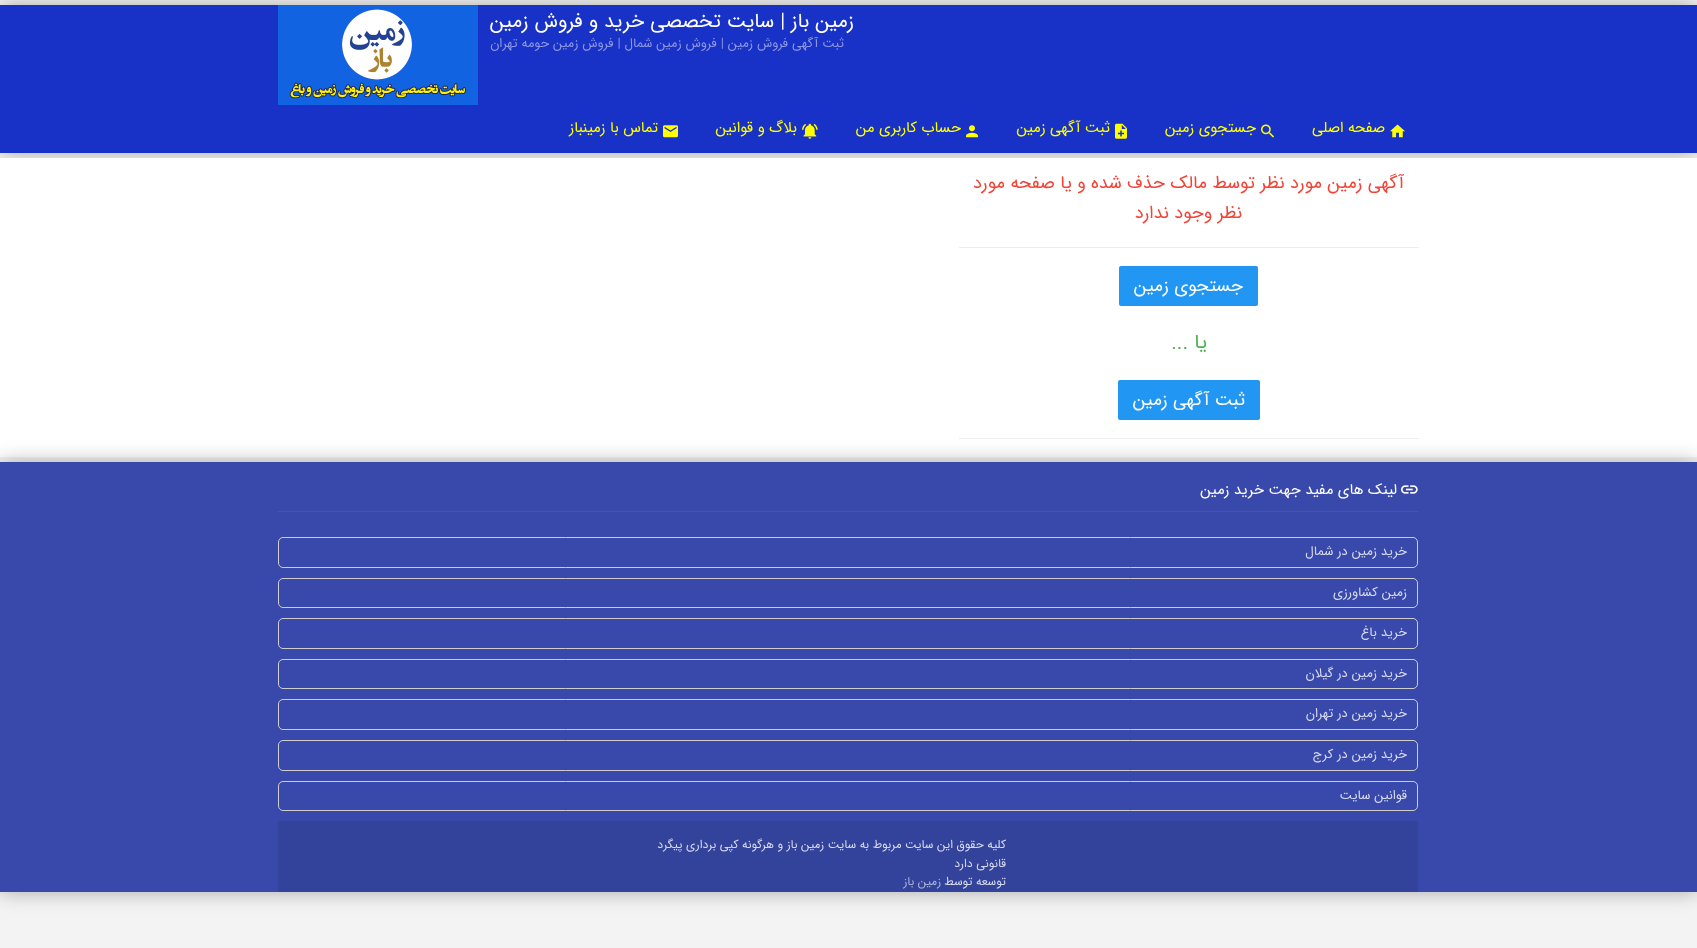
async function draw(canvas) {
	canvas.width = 1697;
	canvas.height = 948;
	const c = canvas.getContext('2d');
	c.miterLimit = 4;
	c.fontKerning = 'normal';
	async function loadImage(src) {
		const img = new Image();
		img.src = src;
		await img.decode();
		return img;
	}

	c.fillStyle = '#f3f3f3';
	c.fillRect(0, 0, 1697, 948);
	c.fillStyle = '#0000004d';
	c.filter = 'blur(10px)';
	c.beginPath();
	c.rect(0, 5, 1697, 148);
	c.fill();
	c.filter = 'none';
	c.fillStyle = '#1831c6';
	c.fillRect(0, 5, 1697, 148);
	c.direction = 'rtl';
	c.font = '20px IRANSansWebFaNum';
	c.fillStyle = '#fff';
	c.fillText('زمین باز | سایت تخصصی خرید و فروش زمین', 854, 27);
	c.font = '13px IRANSansWebFaNum';
	c.fillStyle = '#8c98e3';
	c.fillText('ثبت آگهی فروش زمین | فروش زمین شمال | فروش زمین حومه تهران', 844, 47);
	c.drawImage(await loadImage('img1.png'), 278, 5, 200, 100);
	c.drawImage(await loadImage('img2.png'), 1390, 124, 15, 14);
	c.font = '15px IRANSansWebFaNum';
	c.fillStyle = '#ff0';
	c.fillText('صفحه اصلی', 1385, 132);
	c.drawImage(await loadImage('img3.png'), 1261, 124, 13, 14);
	c.fillText('جستجوی زمین', 1256, 132);
	c.drawImage(await loadImage('img4.png'), 1115, 123, 12, 16);
	c.fillText('ثبت آگهی زمین', 1110, 132);
	c.drawImage(await loadImage('img5.png'), 966, 125, 12, 13);
	c.fillText('حساب کاربری من', 961, 132);
	c.drawImage(await loadImage('img6.png'), 802, 123, 16, 16);
	c.fillText('بلاگ و قوانین', 797, 132);
	c.drawImage(await loadImage('img7.png'), 663, 125, 15, 13);
	c.fillText('تماس با زمینباز', 658, 132);
	c.fillStyle = '#fff';
	c.fillRect(0, 158, 1697, 299);
	c.font = '18px IRANSansWebFaNum';
	c.fillStyle = '#f44336';
	c.fillText('آگهی زمین مورد نظر توسط مالک حذف شده و یا صفحه مورد', 1404, 188);
	c.fillText('نظر وجود ندارد', 1242, 218);
	c.fillStyle = '#eee';
	c.fillRect(959, 247, 460, 1);
	c.fillStyle = '#2196f3';
	c.beginPath();
	c.roundRect(1119, 266, 139, 40, 2);
	c.fill();
	c.fillStyle = '#fff';
	c.fillText('جستجوی زمین', 1243, 291);
	c.font = '20px IRANSansWebFaNum';
	c.fillStyle = '#4caf50';
	c.fillText('یا ...', 1207, 348);
	c.fillStyle = '#2196f3';
	c.beginPath();
	c.roundRect(1118, 380, 142, 40, 2);
	c.fill();
	c.font = '18px IRANSansWebFaNum';
	c.fillStyle = '#fff';
	c.fillText('ثبت آگهی زمین', 1245, 405);
	c.fillStyle = '#0000004d';
	c.filter = 'blur(10px)';
	c.beginPath();
	c.rect(0, 462, 1697, 430);
	c.fill();
	c.filter = 'none';
	for (const [x, y, w, h, color] of [
		[959, 438, 460, 1, '#eee'],
		[0, 462, 1697, 430, '#3949ab'],
		[278, 511, 1140, 1, '#4554b0'],
	]) {
		c.fillStyle = color;
		c.fillRect(x, y, w, h);
	}
	c.drawImage(await loadImage('img8.png'), 1401, 485, 17, 9);
	c.font = '15px IRANSansWebFaNum';
	c.fillStyle = '#fff';
	c.fillText('لینک های مفید جهت خرید زمین', 1397, 494);
	c.beginPath();
	c.roundRect(278.5, 537.5, 1139, 30, 4.5);
	c.strokeStyle = '#cecece';
	c.stroke();
	c.font = '13px IRANSansWebFaNum';
	c.fillStyle = '#d7dbee';
	c.fillText('خرید زمین در شمال', 1407, 555);
	c.beginPath();
	c.roundRect(278.5, 578.5, 1139, 29, 4.5);
	c.stroke();
	c.fillText('زمین کشاورزی', 1407, 596);
	c.beginPath();
	c.roundRect(278.5, 618.5, 1139, 30, 4.5);
	c.stroke();
	c.fillText('خرید باغ', 1407, 636);
	c.beginPath();
	c.roundRect(278.5, 659.5, 1139, 29, 4.5);
	c.stroke();
	c.fillText('خرید زمین در گیلان', 1407, 677);
	c.beginPath();
	c.roundRect(278.5, 699.5, 1139, 30, 4.5);
	c.stroke();
	c.fillText('خرید زمین در تهران', 1407, 717);
	c.beginPath();
	c.roundRect(278.5, 740.5, 1139, 30, 4.5);
	c.stroke();
	c.fillText('خرید زمین در کرج', 1407, 758);
	c.beginPath();
	c.roundRect(278.5, 781.5, 1139, 29, 4.5);
	c.stroke();
	c.fillText('قوانین سایت', 1407, 799);
	c.fillStyle = '#33429a';
	c.fillRect(278, 821, 1140, 71);
	c.font = '11.95px IRANSansWebFaNum';
	c.fillStyle = '#d7dbee';
	for (const [text, x, y] of [
		['کلیه حقوق این سایت مربوط به سایت زمین باز و هرگونه کپی برداری پیگرد', 1006, 848],
		['قانونی دارد', 1006, 867],
		['توسعه توسط', 1006, 885],
	]) {
		c.fillText(text, x, y);
	}
	c.fillStyle = '#adb3d7';
	c.fillText('زمین باز', 941, 885);
}

draw(document.querySelector('canvas'));
